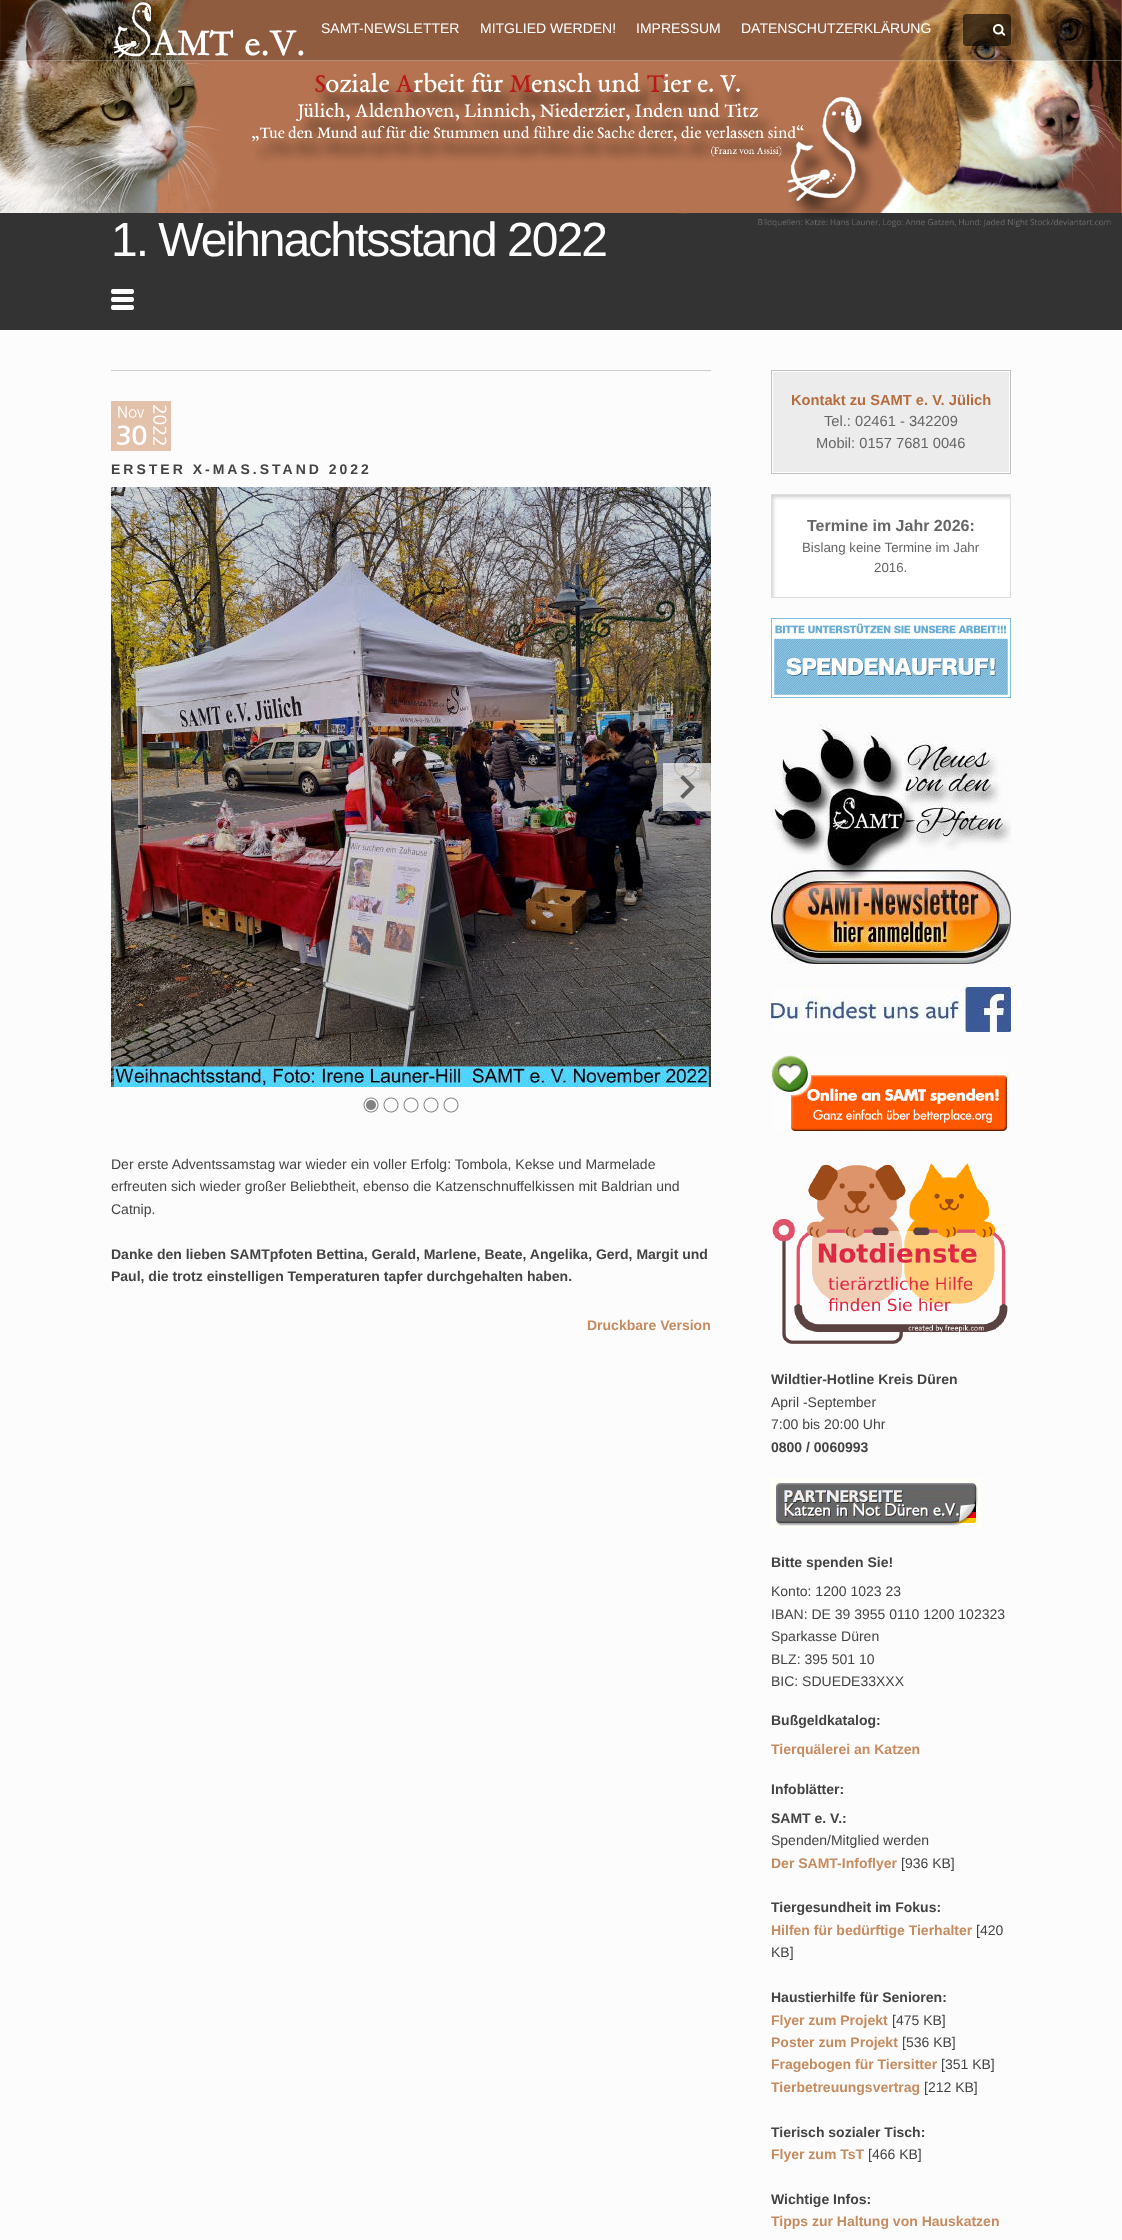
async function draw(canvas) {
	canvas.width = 1122;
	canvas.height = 2240;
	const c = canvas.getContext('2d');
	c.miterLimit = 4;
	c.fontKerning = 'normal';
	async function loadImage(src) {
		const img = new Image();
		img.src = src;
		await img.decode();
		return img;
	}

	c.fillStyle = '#fcfcfc';
	c.fillRect(0, 0, 1122, 2240);
	c.drawImage(await loadImage('img1.png'), 0, 0, 1122, 330);
	c.fillStyle = '#00000033';
	c.fillRect(0, 0, 1122, 61);
	c.fillStyle = '#ffffff4d';
	c.fillRect(0, 60, 1122, 1);
	c.drawImage(await loadImage('img2.png'), 113, 2, 191, 56);
	c.font = '14px Liberation Sans';
	c.fillStyle = '#fff';
	for (const [text, x, y] of [
		['SAMT-NEWSLETTER', 321, 33],
		['MITGLIED WERDEN!', 480, 33],
		['IMPRESSUM', 636, 33],
		['DATENSCHUTZERKLÄRUNG', 741, 33],
	]) {
		c.fillText(text, x, y);
	}
	c.fillStyle = '#00000099';
	c.beginPath();
	c.roundRect(963, 14, 48, 32, 4);
	c.fill();
	c.drawImage(await loadImage('img3.png'), 993, 24, 13, 12);
	c.letterSpacing = '-2px';
	c.font = '48px Liberation Sans';
	c.fillStyle = '#fff';
	c.fillText('1. Weihnachtsstand 2022', 111, 256);
	c.drawImage(await loadImage('img4.png'), 111, 289, 23, 21);
	c.fillStyle = '#ccc';
	c.fillRect(111, 370, 600, 1);
	c.drawImage(await loadImage('img5.png'), 111, 401, 38, 23);
	c.drawImage(await loadImage('img6.png'), 149, 401, 22, 50);
	c.drawImage(await loadImage('img7.png'), 111, 424, 38, 27);
	c.letterSpacing = '3px';
	c.font = 'bold 14px Liberation Sans';
	c.fillStyle = '#444';
	c.fillText('ERSTER X-MAS.STAND 2022', 111, 474);
	c.drawImage(await loadImage('img8.png'), 111, 487, 600, 600);
	c.drawImage(await loadImage('img9.png'), 663, 763, 48, 48);
	c.drawImage(await loadImage('img10.png'), 363, 1097, 16, 16);
	c.drawImage(await loadImage('img11.png'), 383, 1097, 16, 16);
	c.drawImage(await loadImage('img11.png'), 403, 1097, 16, 16);
	c.drawImage(await loadImage('img11.png'), 423, 1097, 16, 16);
	c.drawImage(await loadImage('img11.png'), 443, 1097, 16, 16);
	c.letterSpacing = '0px';
	c.font = '14px Liberation Sans';
	for (const [text, x, y] of [
		['Der erste Adventssamstag war wieder ein voller Erfolg: Tombola, Kekse und Marmelade', 111, 1169],
		['erfreuten sich wieder großer Beliebtheit, ebenso die Katzenschnuffelkissen mit Baldrian und', 111, 1191],
		['Catnip.', 111, 1214],
	]) {
		c.fillText(text, x, y);
	}
	c.font = 'bold 14px Liberation Sans';
	c.fillText('Danke den lieben SAMTpfoten Bettina, Gerald, Marlene, Beate, Angelika, Gerd, Margit und', 111, 1259);
	c.fillText('Paul, die trotz einstelligen Temperaturen tapfer durchgehalten haben.', 111, 1281);
	c.fillStyle = '#c78b60';
	c.fillText('Druckbare Version', 587, 1330);
	c.drawImage(await loadImage('img12.png'), 771, 370, 240, 104);
	c.drawImage(await loadImage('img13.png'), 772, 370, 238, 2);
	c.font = 'bold 14.7px Liberation Sans';
	c.fillStyle = '#b56c3f';
	c.fillText('Kontakt zu SAMT e. V. Jülich', 791, 405);
	c.font = '14.7px Liberation Sans';
	c.fillStyle = '#666';
	c.fillText('Tel.: 02461 - 342209', 824, 426);
	c.fillText('Mobil: 0157 7681 0046', 816, 448);
	c.drawImage(await loadImage('img14.png'), 772, 472, 238, 2);
	c.drawImage(await loadImage('img15.png'), 771, 494, 240, 104);
	c.drawImage(await loadImage('img16.png'), 772, 494, 238, 6);
	c.font = 'bold 16px Liberation Sans';
	c.fillText('Termine im Jahr 2026:', 807, 531);
	c.font = '13.3px Liberation Sans';
	c.fillText('Bislang keine Termine im Jahr', 802, 552);
	c.fillText('2016.', 874, 572);
	c.fillStyle = '#ddd';
	c.fillRect(773, 597, 237, 1);
	c.drawImage(await loadImage('img17.png'), 771, 618, 240, 80);
	c.drawImage(await loadImage('img18.png'), 771, 724, 240, 240);
	c.drawImage(await loadImage('img19.png'), 771, 987, 240, 45);
	c.drawImage(await loadImage('img20.png'), 771, 1055, 236, 76);
	c.drawImage(await loadImage('img21.png'), 772, 1163, 236, 181);
	c.font = 'bold 14px Liberation Sans';
	c.fillStyle = '#444';
	c.fillText('Wildtier-Hotline Kreis Düren', 771, 1384);
	c.font = '14px Liberation Sans';
	c.fillText('April -September', 771, 1407);
	c.fillText('7:00 bis 20:00 Uhr', 771, 1429);
	c.font = 'bold 14px Liberation Sans';
	c.fillText('0800 / 0060993', 771, 1452);
	c.drawImage(await loadImage('img22.png'), 771, 1478, 210, 50);
	c.fillText('Bitte spenden Sie!', 771, 1567);
	c.font = '14px Liberation Sans';
	for (const [text, x, y] of [
		['Konto: 1200 1023 23', 771, 1596],
		['IBAN: DE 39 3955 0110 1200 102323', 771, 1619],
		['Sparkasse Düren', 771, 1641],
		['BLZ: 395 501 10', 771, 1664],
		['BIC: SDUEDE33XXX', 771, 1686],
	]) {
		c.fillText(text, x, y);
	}
	c.font = 'bold 14px Liberation Sans';
	c.fillText('Bußgeldkatalog:', 771, 1725);
	c.fillStyle = '#c78b60';
	c.fillText('Tierquälerei an Katzen', 771, 1754);
	c.fillStyle = '#444';
	c.fillText('Infoblätter:', 771, 1794);
	c.fillText('SAMT e. V.:', 771, 1823);
	c.font = '14px Liberation Sans';
	c.fillText('Spenden/Mitglied werden', 771, 1845);
	c.font = 'bold 14px Liberation Sans';
	c.fillStyle = '#c78b60';
	c.fillText('Der SAMT-Infoflyer', 771, 1868);
	c.font = '14px Liberation Sans';
	c.fillStyle = '#444';
	c.fillText('[936 KB]', 901, 1868);
	c.font = 'bold 14px Liberation Sans';
	c.fillText('Tiergesundheit im Fokus:', 771, 1912);
	c.fillStyle = '#c78b60';
	c.fillText('Hilfen für bedürftige Tierhalter', 771, 1935);
	c.font = '14px Liberation Sans';
	c.fillStyle = '#444';
	c.fillText('[420', 976, 1935);
	c.fillText('KB]', 771, 1957);
	c.font = 'bold 14px Liberation Sans';
	c.fillText('Haustierhilfe für Senioren:', 771, 2002);
	c.fillStyle = '#c78b60';
	c.fillText('Flyer zum Projekt', 771, 2025);
	c.font = '14px Liberation Sans';
	c.fillStyle = '#444';
	c.fillText('[475 KB]', 892, 2025);
	c.font = 'bold 14px Liberation Sans';
	c.fillStyle = '#c78b60';
	c.fillText('Poster zum Projekt', 771, 2047);
	c.font = '14px Liberation Sans';
	c.fillStyle = '#444';
	c.fillText('[536 KB]', 902, 2047);
	c.font = 'bold 14px Liberation Sans';
	c.fillStyle = '#c78b60';
	c.fillText('Fragebogen für Tiersitter', 771, 2069);
	c.font = '14px Liberation Sans';
	c.fillStyle = '#444';
	c.fillText('[351 KB]', 941, 2069);
	c.font = 'bold 14px Liberation Sans';
	c.fillStyle = '#c78b60';
	c.fillText('Tierbetreuungsvertrag', 771, 2092);
	c.font = '14px Liberation Sans';
	c.fillStyle = '#444';
	c.fillText('[212 KB]', 924, 2092);
	c.font = 'bold 14px Liberation Sans';
	c.fillText('Tierisch sozialer Tisch:', 771, 2137);
	c.fillStyle = '#c78b60';
	c.fillText('Flyer zum TsT', 771, 2159);
	c.font = '14px Liberation Sans';
	c.fillStyle = '#444';
	c.fillText('[466 KB]', 868, 2159);
	c.font = 'bold 14px Liberation Sans';
	c.fillText('Wichtige Infos:', 771, 2204);
	c.fillStyle = '#c78b60';
	c.fillText('Tipps zur Haltung von Hauskatzen', 771, 2226);
}

draw(document.querySelector('canvas'));
